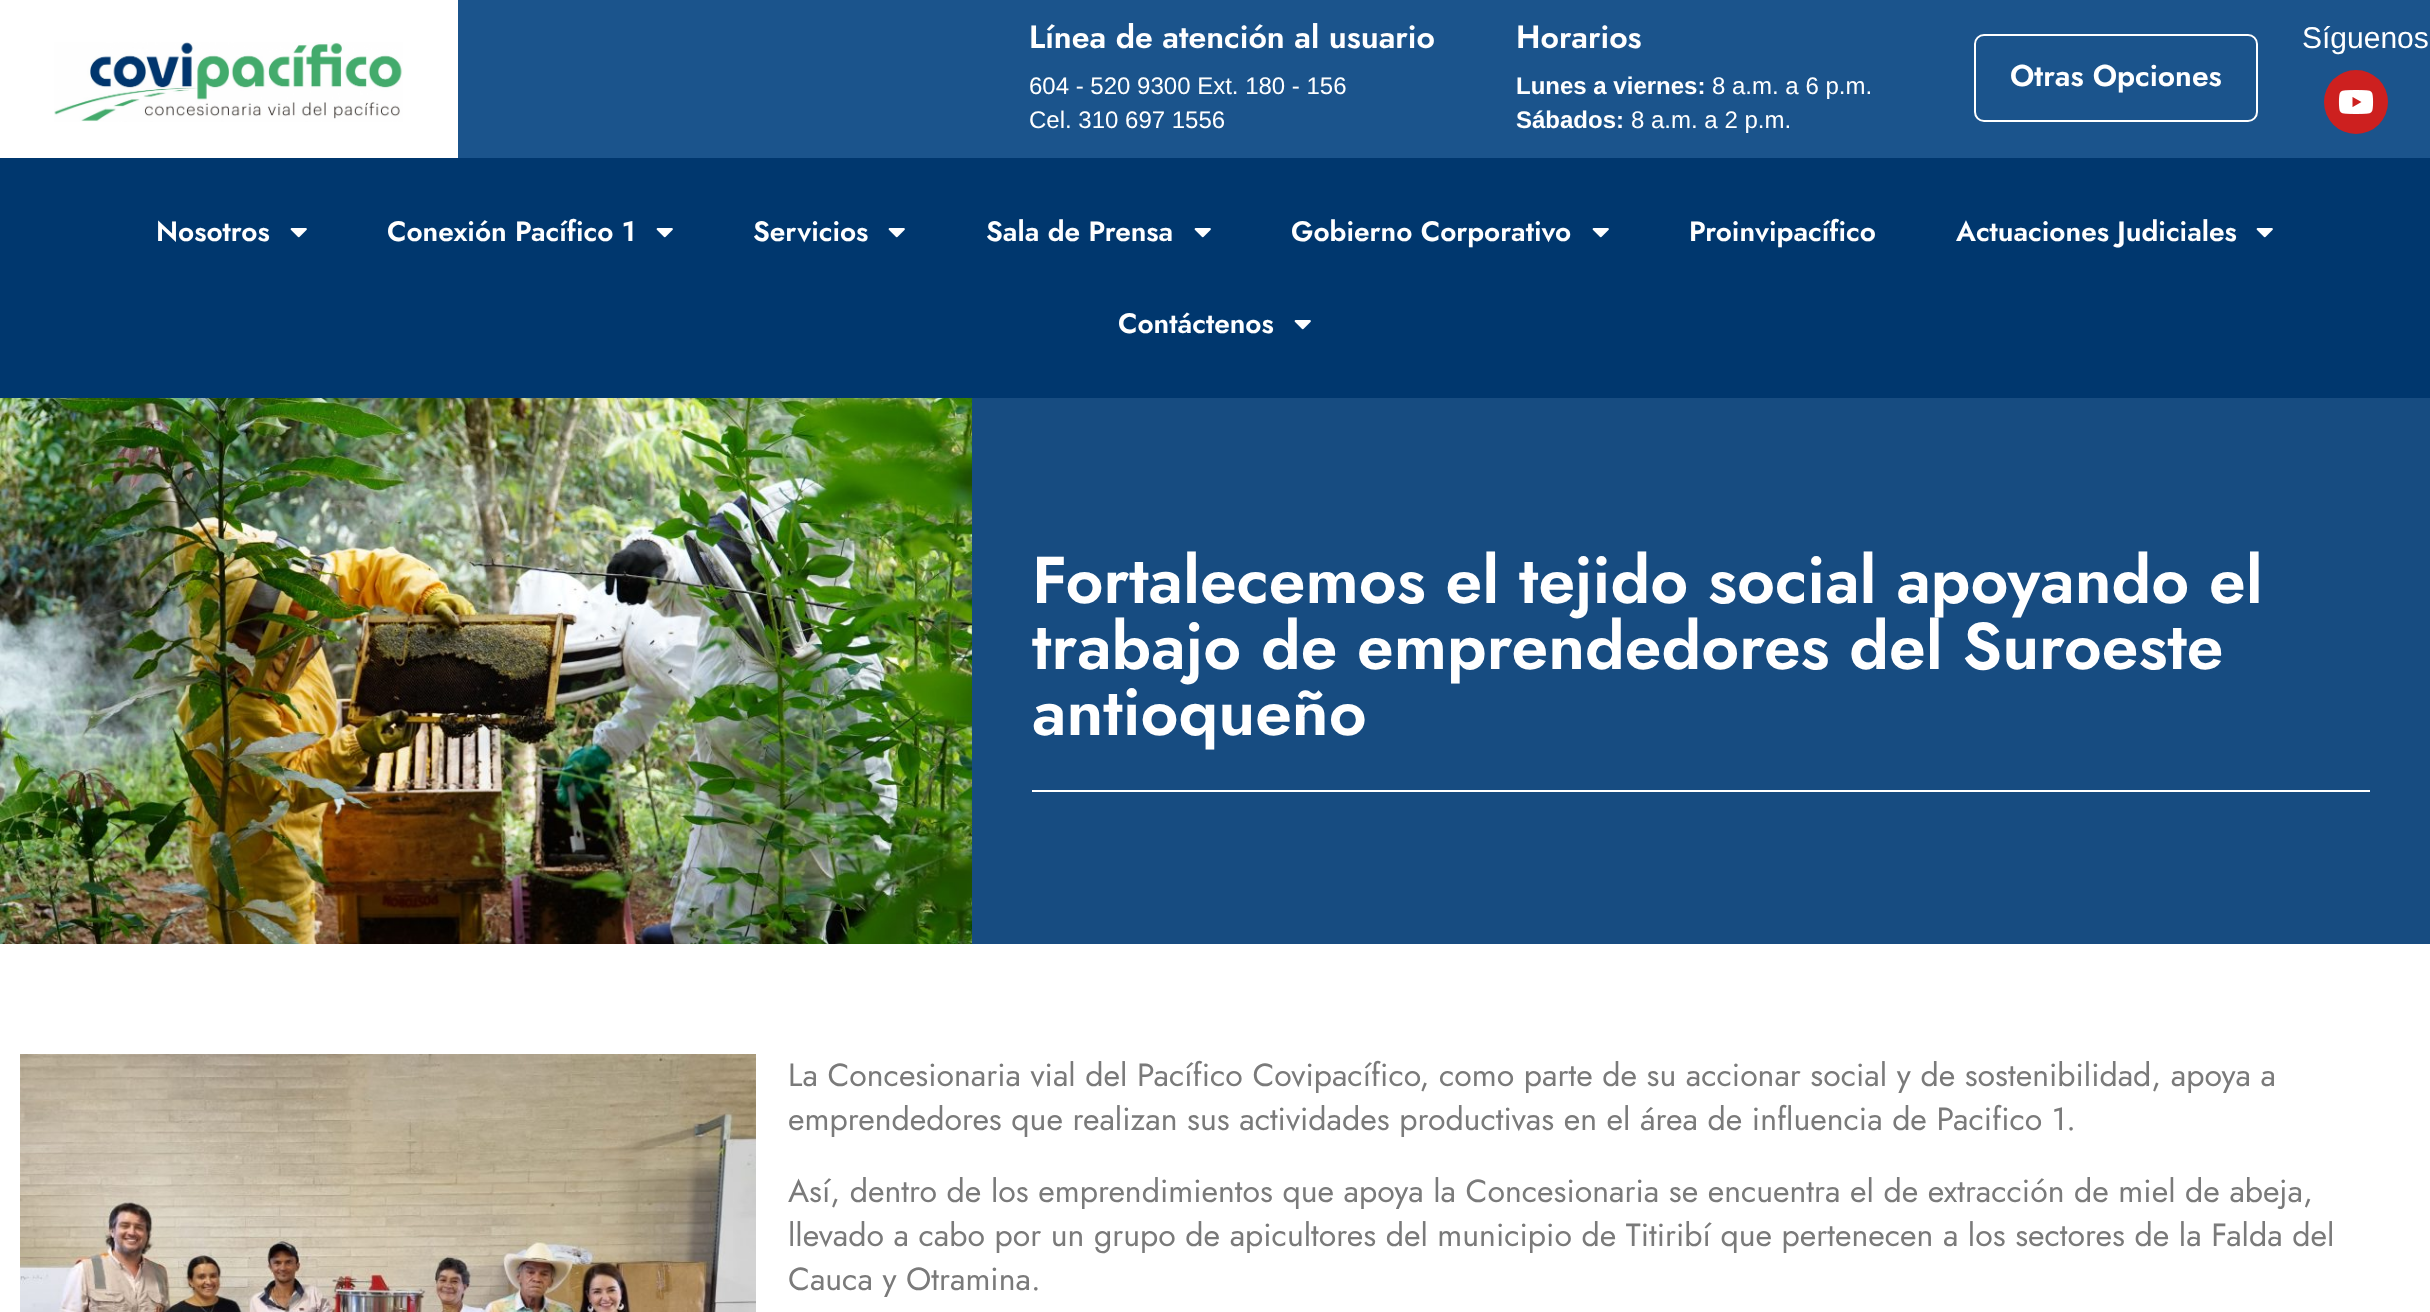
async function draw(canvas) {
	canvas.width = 2430;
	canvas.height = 1312;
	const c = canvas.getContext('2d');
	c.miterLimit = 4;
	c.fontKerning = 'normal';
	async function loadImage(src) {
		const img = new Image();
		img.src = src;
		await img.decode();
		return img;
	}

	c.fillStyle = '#fff';
	c.fillRect(0, 0, 2430, 1312);
	c.fillStyle = '#1b548c';
	c.fillRect(458, 0, 1972, 158);
	c.drawImage(await loadImage('img1.png'), 54, 42, 349, 80);
	c.font = '600 32px Jost';
	c.fillStyle = '#fff';
	c.fillText('Línea de atención al usuario', 1029, 48);
	c.font = '24px Liberation Sans';
	c.fillText('604 - 520 9300 Ext. 180 - 156', 1029, 94);
	c.fillText('Cel. 310 697 1556', 1029, 128);
	c.font = '600 32px Jost';
	c.fillText('Horarios', 1516, 48);
	c.font = 'bold 24px Liberation Sans';
	c.fillText('Lunes a viernes:', 1516, 94);
	c.font = '24px Liberation Sans';
	c.fillText('8 a.m. a 6 p.m.', 1712, 94);
	c.font = 'bold 24px Liberation Sans';
	c.fillText('Sábados:', 1516, 128);
	c.font = '24px Liberation Sans';
	c.fillText('8 a.m. a 2 p.m.', 1631, 128);
	c.beginPath();
	c.roundRect(1975, 35, 282, 86, 9);
	c.strokeStyle = '#fff';
	c.lineWidth = 2;
	c.stroke();
	c.font = '600 30px Jost';
	c.fillText('Otras Opciones', 2010, 86);
	c.font = '30px Liberation Sans';
	c.fillText('Síguenos', 2302, 48);
	c.fillStyle = '#cd201f';
	c.beginPath();
	c.arc(2356, 102, 32, 0, 2 * Math.PI);
	c.fill();
	c.drawImage(await loadImage('img2.png'), 2338, 90, 36, 24);
	c.fillStyle = '#00376e';
	c.fillRect(0, 158, 2430, 240);
	c.font = '600 28px Jost';
	c.fillStyle = '#fff';
	c.fillText('Nosotros', 156, 241);
	c.drawImage(await loadImage('img3.png'), 290, 228, 17, 10);
	c.fillText('Conexión Pacífico 1', 387, 241);
	c.drawImage(await loadImage('img3.png'), 656, 228, 17, 10);
	c.fillText('Servicios', 753, 241);
	c.drawImage(await loadImage('img3.png'), 888, 228, 17, 10);
	c.fillText('Sala de Prensa', 986, 241);
	c.drawImage(await loadImage('img3.png'), 1194, 228, 17, 10);
	c.fillText('Gobierno Corporativo', 1291, 241);
	c.drawImage(await loadImage('img3.png'), 1592, 228, 17, 10);
	c.fillText('Proinvipacífico', 1689, 241);
	c.fillText('Actuaciones Judiciales', 1956, 241);
	c.drawImage(await loadImage('img3.png'), 2256, 228, 17, 10);
	c.fillText('Contáctenos', 1118, 333);
	c.drawImage(await loadImage('img3.png'), 1294, 320, 17, 10);
	c.drawImage(await loadImage('img4.png'), 0, 398, 972, 546);
	c.fillStyle = '#174c81';
	c.fillRect(972, 398, 1458, 546);
	c.font = '600 66px Jost';
	c.fillStyle = '#fff';
	for (const [text, x, y] of [
		['Fortalecemos el tejido social apoyando el', 1032, 603],
		['trabajo de emprendedores del Suroeste', 1032, 669],
		['antioqueño', 1032, 735],
	]) {
		c.fillText(text, x, y);
	}
	c.fillRect(1032, 790, 1338, 2);
	c.drawImage(await loadImage('img5.png'), 20, 1054, 736, 258);
	c.font = '32px Jost';
	c.fillStyle = '#7a7a7a';
	for (const [text, x, y] of [
		['La Concesionaria vial del Pacífico Covipacífico, como parte de su accionar social y de sostenibilidad, apoya a', 788, 1086],
		['emprendedores que realizan sus actividades productivas en el área de influencia de Pacifico 1.', 788, 1130],
		['Así, dentro de los emprendimientos que apoya la Concesionaria se encuentra el de extracción de miel de abeja,', 788, 1202],
		['llevado a cabo por un grupo de apicultores del municipio de Titiribí que pertenecen a los sectores de la Falda del', 788, 1246],
		['Cauca y Otramina.', 788, 1290],
	]) {
		c.fillText(text, x, y);
	}
}

draw(document.querySelector('canvas'));
